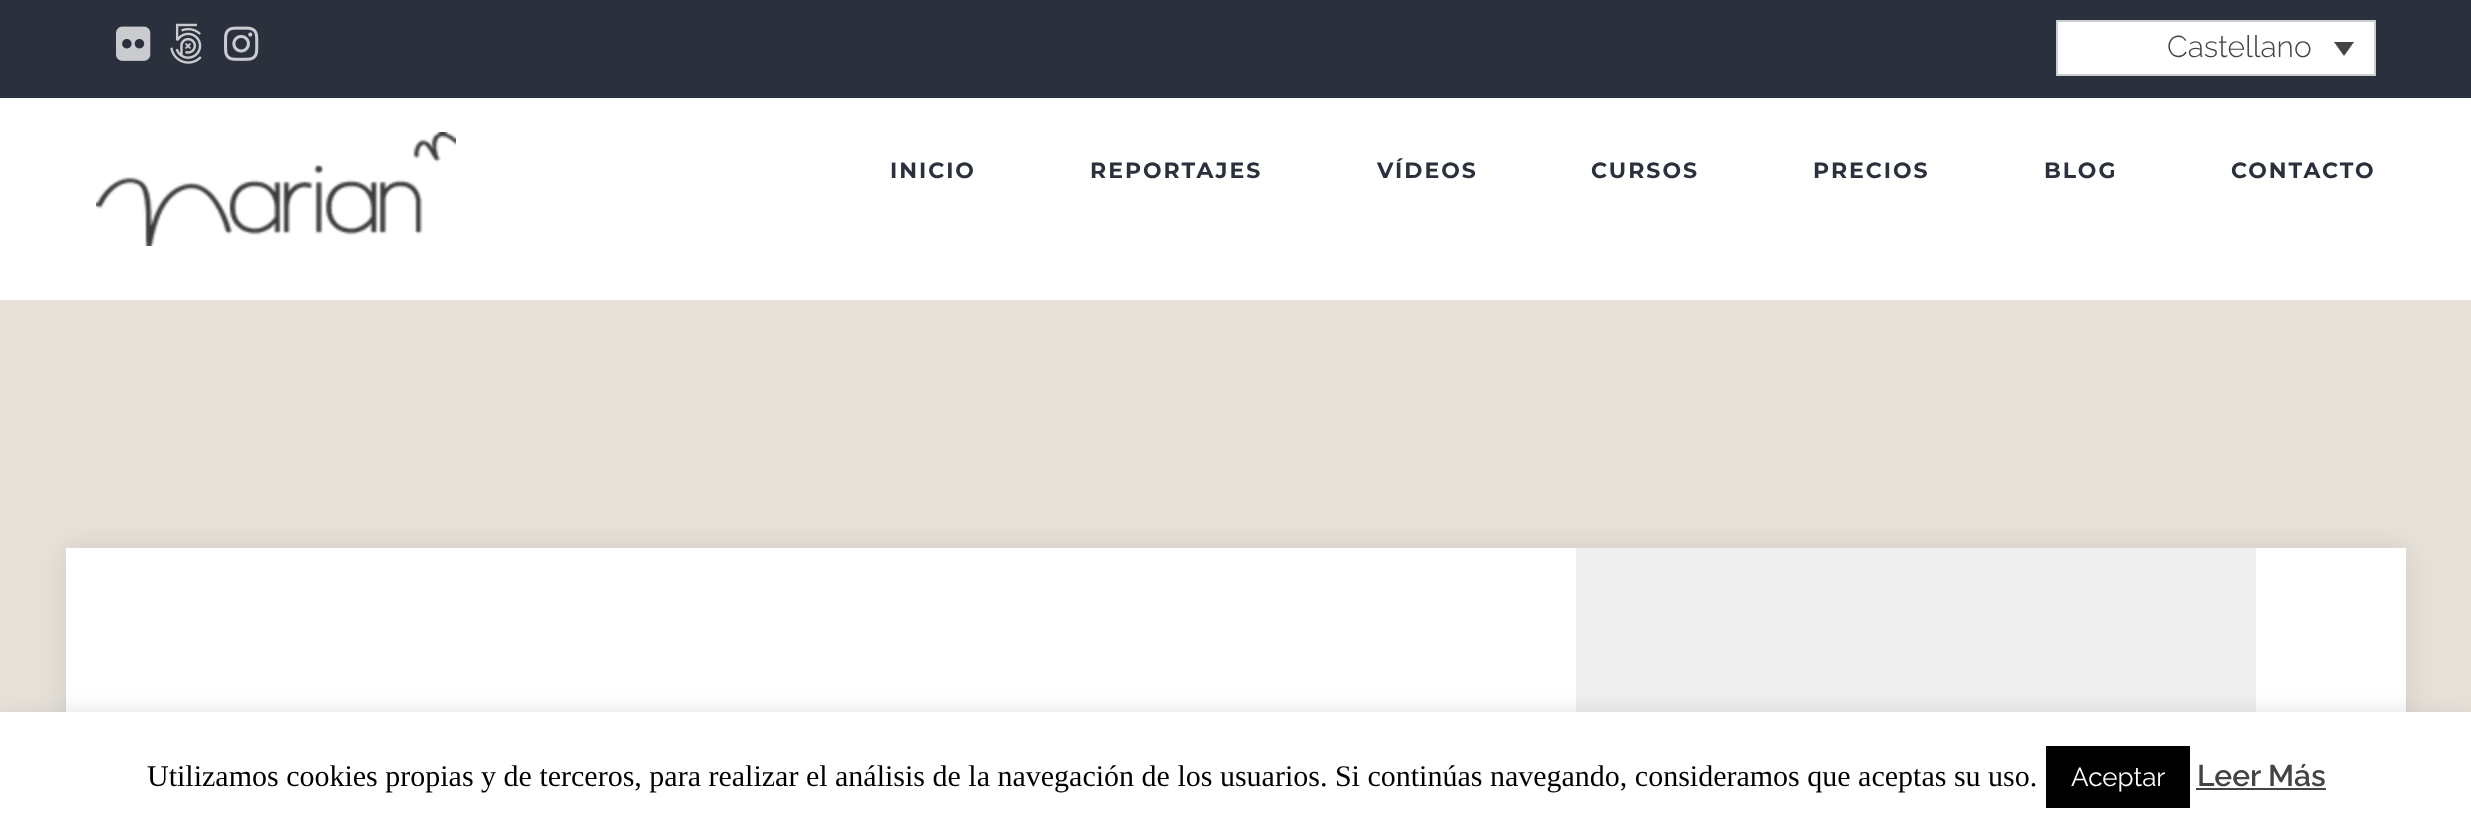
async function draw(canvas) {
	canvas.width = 2471;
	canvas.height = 832;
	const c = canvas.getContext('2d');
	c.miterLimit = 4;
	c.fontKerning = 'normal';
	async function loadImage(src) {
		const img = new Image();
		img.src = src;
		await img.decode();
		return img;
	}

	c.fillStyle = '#e7e2d9';
	c.fillRect(0, 0, 2471, 832);
	c.fillStyle = '#2b303d';
	c.fillRect(0, 0, 2471, 98);
	c.drawImage(await loadImage('img1.png'), 116, 26, 35, 35);
	c.drawImage(await loadImage('img2.png'), 170, 23, 32, 41);
	c.drawImage(await loadImage('img3.png'), 224, 26, 35, 35);
	c.fillStyle = '#fff';
	c.beginPath();
	c.rect(2057, 21, 318, 54);
	c.fill();
	c.strokeStyle = '#cdcdcd';
	c.lineWidth = 2;
	c.stroke();
	c.font = '300 30px Raleway';
	c.fillStyle = '#444';
	c.fillText('Castellano', 2167, 57);
	c.beginPath();
	c.moveTo(2334, 42);
	c.lineTo(2354, 42);
	c.lineTo(2344, 56);
	c.closePath();
	c.fill();
	c.fillStyle = '#fff';
	c.fillRect(0, 98, 2471, 202);
	c.drawImage(await loadImage('img4.png'), 96, 132, 360, 114);
	c.letterSpacing = '2px';
	c.font = 'bold 22px Montserrat';
	c.fillStyle = '#2b303d';
	for (const [text, x, y] of [
		['INICIO', 890, 178],
		['REPORTAJES', 1090, 178],
		['VÍDEOS', 1377, 178],
		['CURSOS', 1591, 178],
		['PRECIOS', 1813, 178],
		['BLOG', 2044, 178],
		['CONTACTO', 2231, 178],
	]) {
		c.fillText(text, x, y);
	}
	c.fillStyle = '#0000001a';
	c.filter = 'blur(15px)';
	c.beginPath();
	c.rect(66, 548, 2340, 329);
	c.fill();
	c.filter = 'none';
	c.fillStyle = '#fff';
	c.fillRect(66, 548, 2340, 164);
	c.fillStyle = '#efefef';
	c.fillRect(1576, 548, 680, 164);
	c.fillStyle = '#acabab4d';
	c.filter = 'blur(10px)';
	c.beginPath();
	c.rect(0, 710, 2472, 120);
	c.fill();
	c.filter = 'none';
	c.fillStyle = '#fff';
	c.fillRect(0, 712, 2471, 120);
	c.letterSpacing = '0px';
	c.font = '30px Liberation Serif';
	c.fillStyle = '#000';
	c.fillText('Utilizamos cookies propias y de terceros, para realizar el análisis de la navegación de los usuarios. Si continúas navegando, consideramos que aceptas su uso.', 147, 786);
	c.fillRect(2046, 746, 144, 62);
	c.font = '26px Raleway';
	c.fillStyle = '#fff';
	c.fillText('Aceptar', 2071, 786);
	c.font = '600 30px Raleway';
	c.fillStyle = '#444';
	c.fillText('Leer Más', 2197, 786);
	c.fillRect(2196, 788, 130, 2);
}

draw(document.querySelector('canvas'));
